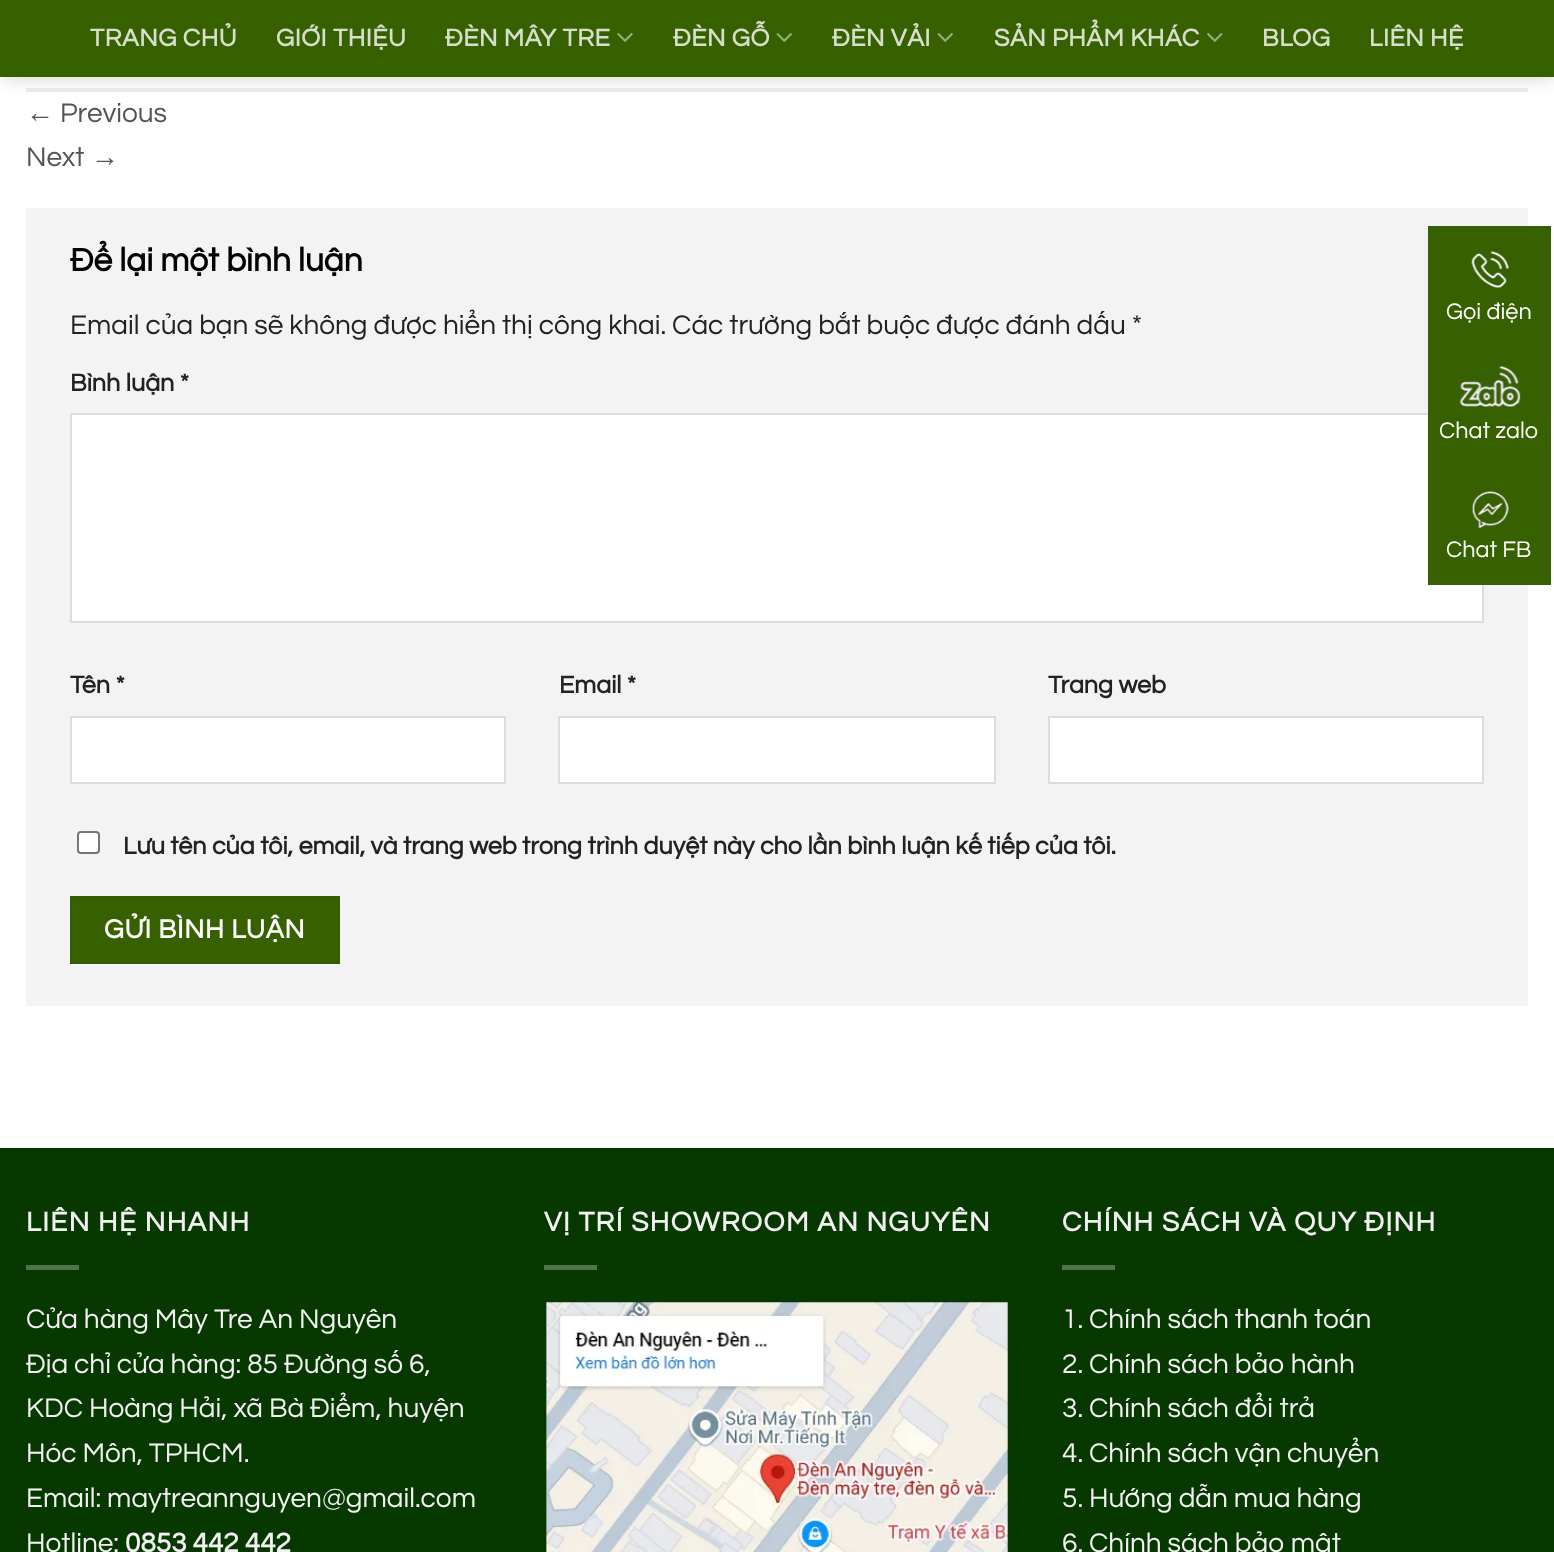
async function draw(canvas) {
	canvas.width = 1554;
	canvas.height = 1552;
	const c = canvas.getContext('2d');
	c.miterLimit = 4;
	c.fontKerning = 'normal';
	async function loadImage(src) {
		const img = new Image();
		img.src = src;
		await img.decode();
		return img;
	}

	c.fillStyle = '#fff';
	c.fillRect(0, 0, 1554, 1552);
	c.fillStyle = '#ececec';
	c.fillRect(26, 88, 1502, 4);
	c.fillStyle = '#00000026';
	c.filter = 'blur(9px)';
	c.beginPath();
	c.rect(2, 2, 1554, 77);
	c.fill();
	c.filter = 'none';
	c.fillStyle = '#376100';
	c.fillRect(0, 0, 1554, 77);
	c.letterSpacing = '0.5px';
	c.font = 'bold 25.2px Questrial';
	c.fillStyle = '#d7dfcc';
	for (const [text, x, y] of [
		['TRANG CHỦ', 90, 46],
		['GIỚI THIỆU', 276, 46],
		['ĐÈN MÂY TRE', 445, 46],
	]) {
		c.fillText(text, x, y);
	}
	c.drawImage(await loadImage('img1.png'), 617, 33, 16, 9);
	c.fillText('ĐÈN GỖ', 673, 46);
	c.drawImage(await loadImage('img2.png'), 776, 33, 16, 9);
	c.fillText('ĐÈN VẢI', 832, 46);
	c.drawImage(await loadImage('img2.png'), 937, 33, 16, 9);
	c.fillText('SẢN PHẨM KHÁC', 994, 46);
	c.drawImage(await loadImage('img3.png'), 1207, 33, 16, 9);
	c.fillText('BLOG', 1262, 46);
	c.fillText('LIÊN HỆ', 1369, 46);
	c.letterSpacing = '0px';
	c.font = '28px Liberation Sans';
	c.fillStyle = '#555';
	c.fillText('←', 26, 122);
	c.font = '28px Questrial';
	c.fillText('Previous', 60, 122);
	c.fillText('Next', 26, 166);
	c.font = '28px Liberation Sans';
	c.fillText('→', 91, 166);
	c.fillStyle = '#f3f3f3';
	c.fillRect(26, 208, 1502, 798);
	c.font = 'bold 33.5px Questrial';
	c.fillStyle = '#000';
	c.fillText('Để lại một bình luận', 70, 271);
	c.font = '28px Questrial';
	c.fillStyle = '#222';
	c.fillText('Email của bạn sẽ không được hiển thị công khai. Các trường bắt buộc được đánh dấu *', 70, 334);
	c.font = 'bold 25.2px Questrial';
	c.fillText('Bình luận *', 70, 391);
	c.fillStyle = '#fff';
	c.beginPath();
	c.rect(71, 414, 1412, 208);
	c.fill();
	c.strokeStyle = '#ddd';
	c.lineWidth = 2;
	c.stroke();
	c.fillStyle = '#222';
	c.fillText('Tên *', 70, 693);
	c.fillStyle = '#fff';
	c.beginPath();
	c.rect(71, 717, 434, 66);
	c.fill();
	c.stroke();
	c.fillStyle = '#222';
	c.fillText('Email *', 559, 693);
	c.fillStyle = '#fff';
	c.beginPath();
	c.rect(559, 717, 436, 66);
	c.fill();
	c.stroke();
	c.fillStyle = '#222';
	c.fillText('Trang web', 1048, 693);
	c.fillStyle = '#fff';
	c.beginPath();
	c.rect(1049, 717, 434, 66);
	c.fill();
	c.stroke();
	c.beginPath();
	c.roundRect(78, 832, 21, 21, 3);
	c.fill();
	c.strokeStyle = '#767676';
	c.stroke();
	c.fillStyle = '#222';
	c.fillText('Lưu tên của tôi, email, và trang web trong trình duyệt này cho lần bình luận kế tiếp của tôi.', 123, 854);
	c.fillStyle = '#376100';
	c.beginPath();
	c.rect(71, 897, 268, 66);
	c.fill();
	c.strokeStyle = '#345c00';
	c.stroke();
	c.letterSpacing = '0.75px';
	c.font = 'bold 27.25px Questrial';
	c.fillStyle = '#fff';
	c.fillText('GỬI BÌNH LUẬN', 104, 938);
	c.fillStyle = '#073800';
	c.fillRect(0, 1150, 1554, 402);
	c.fillStyle = '#073500';
	c.fillRect(0, 1148, 1554, 2);
	c.letterSpacing = '1.4px';
	c.font = 'bold 28px Questrial';
	c.fillStyle = '#f1f1f1';
	c.fillText('LIÊN HỆ NHANH', 26, 1231);
	c.fillStyle = '#51744d';
	c.fillRect(26, 1265, 53, 5);
	c.letterSpacing = '0px';
	c.font = '28px Questrial';
	c.fillStyle = '#f1f1f1';
	for (const [text, x, y] of [
		['Cửa hàng Mây Tre An Nguyên', 26, 1328],
		['Địa chỉ cửa hàng: 85 Đường số 6,', 26, 1373],
		['KDC Hoàng Hải, xã Bà Điểm, huyện', 26, 1417],
		['Hóc Môn, TPHCM.', 26, 1462],
		['Email: maytreannguyen@gmail.com', 26, 1507],
		['Hotline:', 26, 1552],
	]) {
		c.fillText(text, x, y);
	}
	c.font = 'bold 28px Questrial';
	c.fillText('0853 442 442', 125, 1552);
	c.letterSpacing = '1.4px';
	c.fillText('VỊ TRÍ SHOWROOM AN NGUYÊN', 544, 1231);
	c.fillStyle = '#51744d';
	c.fillRect(544, 1265, 53, 5);
	c.drawImage(await loadImage('img4.png'), 544, 1298, 465, 254);
	c.fillStyle = '#f1f1f1';
	c.fillText('CHÍNH SÁCH VÀ QUY ĐỊNH', 1062, 1231);
	c.fillStyle = '#51744d';
	c.fillRect(1062, 1265, 53, 5);
	c.letterSpacing = '0px';
	c.font = '28px Questrial';
	c.fillStyle = '#f1f1f1';
	for (const [text, x, y] of [
		['1. Chính sách thanh toán', 1062, 1328],
		['2. Chính sách bảo hành', 1062, 1373],
		['3. Chính sách đổi trả', 1062, 1417],
		['4. Chính sách vận chuyển', 1062, 1462],
		['5. Hướng dẫn mua hàng', 1062, 1507],
		['6. Chính sách bảo mật', 1062, 1552],
	]) {
		c.fillText(text, x, y);
	}
	c.fillStyle = '#376100';
	c.fillRect(1428, 226, 123, 359);
	c.drawImage(await loadImage('img5.png'), 1471, 251, 38, 37);
	c.font = '23.5px Questrial';
	c.fillStyle = '#fff';
	c.fillText('Gọi điện', 1446, 319);
	c.drawImage(await loadImage('img6.png'), 1459, 366, 62, 41);
	c.fillText('Chat zalo', 1439, 438);
	c.drawImage(await loadImage('img7.png'), 1472, 491, 37, 37);
	c.fillText('Chat FB', 1446, 557);
}

draw(document.querySelector('canvas'));
